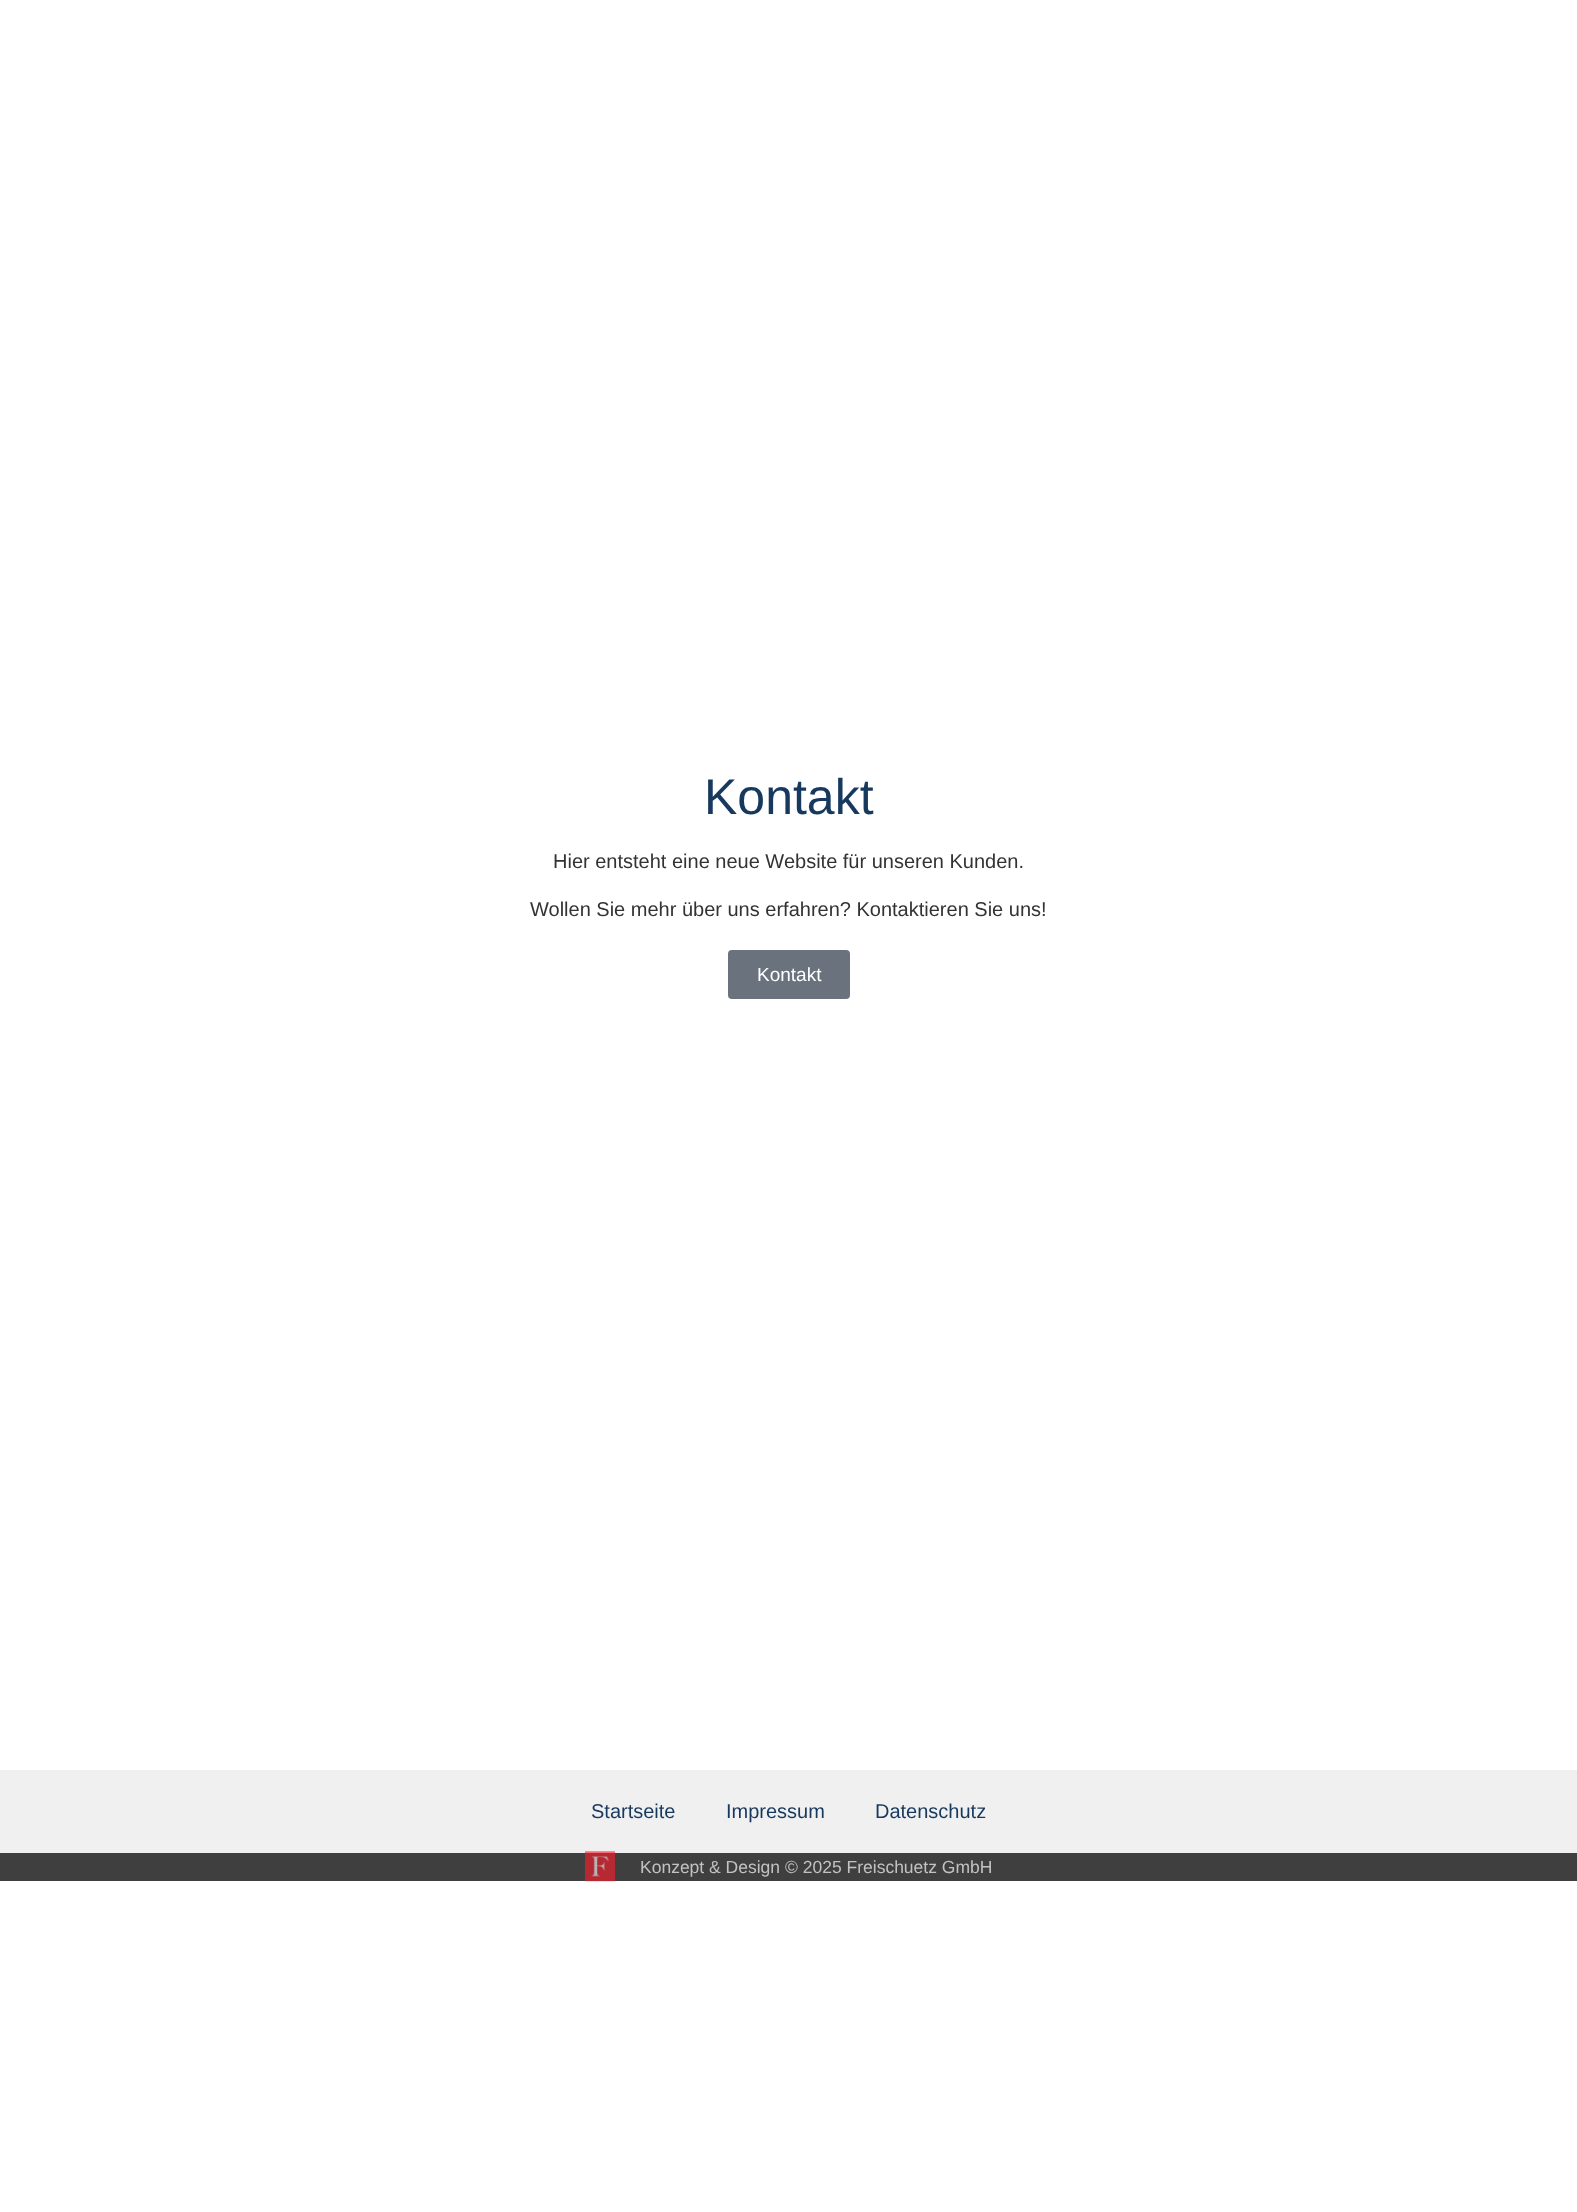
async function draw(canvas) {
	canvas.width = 1577;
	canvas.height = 2212;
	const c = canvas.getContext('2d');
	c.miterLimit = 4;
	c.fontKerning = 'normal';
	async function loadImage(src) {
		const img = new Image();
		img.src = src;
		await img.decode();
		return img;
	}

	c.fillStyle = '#fff';
	c.fillRect(0, 0, 1577, 2212);
	c.font = '50px Liberation Sans';
	c.fillStyle = '#17395e';
	c.fillText('Kontakt', 704, 814);
	c.font = '20px Liberation Sans';
	c.fillStyle = '#333';
	c.fillText('Hier entsteht eine neue Website für unseren Kunden.', 553, 868);
	c.fillText('Wollen Sie mehr über uns erfahren? Kontaktieren Sie uns!', 530, 916);
	c.fillStyle = '#69727d';
	c.beginPath();
	c.roundRect(728, 950, 122, 49, 4);
	c.fill();
	c.font = '19px Liberation Sans';
	c.fillStyle = '#fff';
	c.fillText('Kontakt', 757, 981);
	c.fillStyle = '#f0f0f0';
	c.fillRect(0, 1770, 1577, 83);
	c.font = '20px Liberation Sans';
	c.fillStyle = '#17395e';
	for (const [text, x, y] of [
		['Startseite', 591, 1818],
		['Impressum', 726, 1818],
		['Datenschutz', 875, 1818],
	]) {
		c.fillText(text, x, y);
	}
	c.fillStyle = '#3f3f3f';
	c.fillRect(0, 1853, 1577, 28);
	c.drawImage(await loadImage('img1.png'), 585, 1851, 30, 31);
	c.font = '17.5px Liberation Sans';
	c.fillStyle = '#c2c2c2';
	c.fillText('Konzept & Design © 2025 Freischuetz GmbH', 640, 1873);
}

draw(document.querySelector('canvas'));
